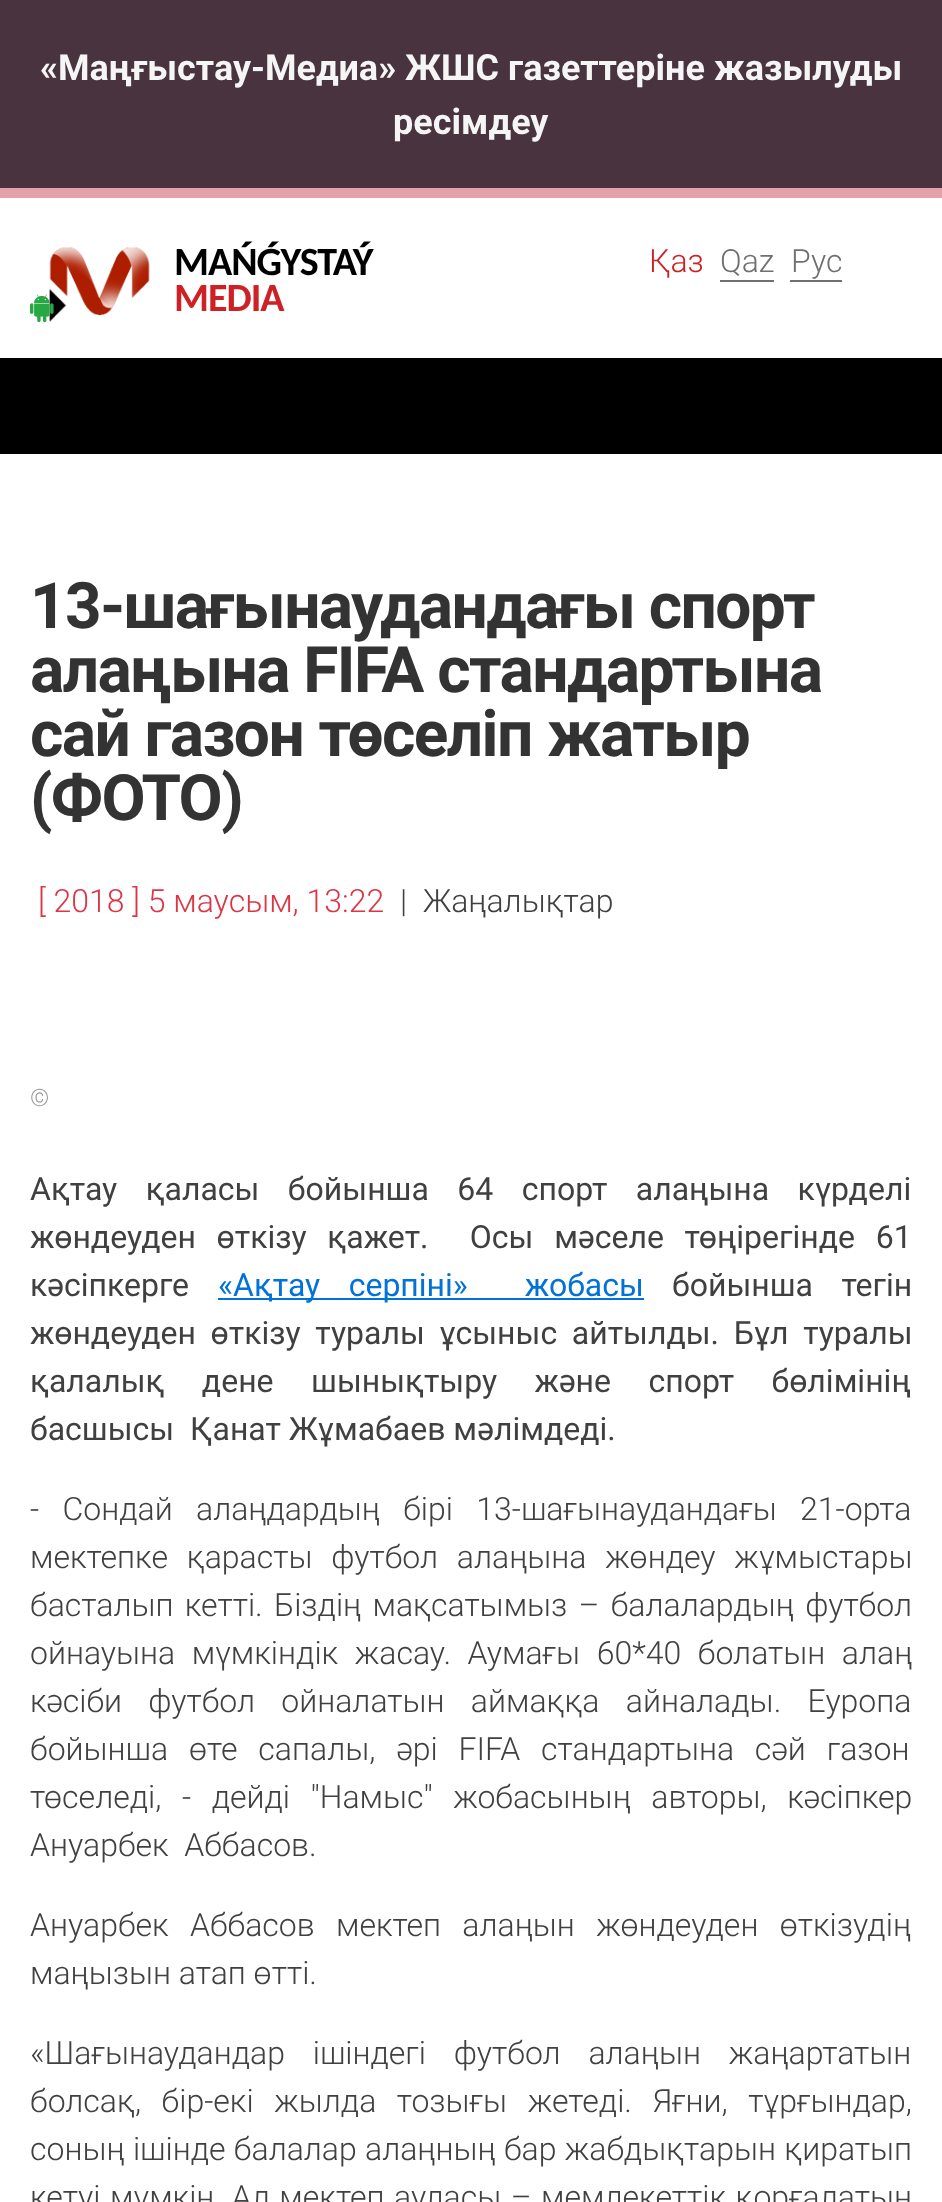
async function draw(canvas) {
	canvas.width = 942;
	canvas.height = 2202;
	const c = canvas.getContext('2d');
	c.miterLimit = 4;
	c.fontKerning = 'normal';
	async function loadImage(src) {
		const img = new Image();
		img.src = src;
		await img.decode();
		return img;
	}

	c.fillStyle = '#fff';
	c.fillRect(0, 0, 942, 2202);
	c.fillStyle = '#48333e';
	c.fillRect(0, 0, 942, 188);
	c.fillStyle = '#e2a2a8';
	c.fillRect(0, 188, 942, 10);
	c.font = 'bold 36px Roboto';
	c.fillStyle = '#f5f5f5';
	c.fillText('«Маңғыстау-Медиа» ЖШС газеттеріне жазылуды', 40, 80);
	c.fillText('ресімдеу', 393, 134);
	c.drawImage(await loadImage('img2.png'), 49, 247, 101, 75);
	c.drawImage(await loadImage('img1.png'), 30, 294, 24, 29);
	c.letterSpacing = '-1px';
	c.font = 'bold 40px Carlito';
	c.fillStyle = '#000';
	c.fillText('MAŃǴYSTAÝ', 174, 275);
	c.fillStyle = '#ce2125';
	c.fillText('MEDIA', 174, 311);
	c.letterSpacing = '0px';
	c.font = '300 32px Roboto';
	c.fillText('Қаз', 649, 272);
	c.fillStyle = '#707070';
	c.fillText('Qaz', 720, 272);
	c.fillRect(720, 280, 54, 2);
	c.fillText('Рус', 791, 272);
	c.fillRect(790, 280, 52, 2);
	c.fillStyle = '#000';
	c.fillRect(0, 358, 942, 96);
	c.letterSpacing = '-1.6px';
	c.font = 'bold 64px Roboto';
	c.fillStyle = '#333';
	c.fillText('13-шағынаудандағы спорт', 30, 628);
	c.fillText('алаңына FIFA стандартына', 30, 692);
	c.wordSpacing = '1px';
	c.fillText('сай газон төселіп жатыр', 30, 756);
	c.wordSpacing = '0px';
	c.fillText('(ФОТО)', 30, 820);
	c.letterSpacing = '0px';
	c.font = '300 32px Roboto';
	c.fillStyle = '#dc3545';
	c.fillText('[ 2018 ] 5 маусым, 13:22', 38, 912);
	c.fillStyle = '#404040';
	c.fillText('|', 400, 912);
	c.fillText('Жаңалықтар', 423, 912);
	c.font = '300 24px Roboto';
	c.fillStyle = '#999';
	c.fillText('©', 30, 1106);
	c.wordSpacing = '20.5px';
	c.font = '32px Roboto';
	c.fillStyle = '#404040';
	c.fillText('Ақтау қаласы бойынша 64 спорт алаңына күрделі', 30, 1200);
	c.wordSpacing = '12.75px';
	c.fillText('жөндеуден өткізу қажет.  Осы мәселе төңірегінде 61', 30, 1248);
	c.wordSpacing = '0px';
	c.fillText('кәсіпкерге', 30, 1296);
	c.fillStyle = '#0072d9';
	c.fillRect(218, 1298, 426, 2);
	c.wordSpacing = '20.5px';
	c.fillText('«Ақтау серпіні»  жобасы', 218, 1296);
	c.fillStyle = '#404040';
	c.fillText('бойынша тегін', 672, 1296);
	c.wordSpacing = '6.75px';
	c.fillText('жөндеуден өткізу туралы ұсыныс айтылды. Бұл туралы', 30, 1344);
	c.wordSpacing = '29.5px';
	c.fillText('қалалық дене шынықтыру және спорт бөлімінің', 30, 1392);
	c.wordSpacing = '0px';
	c.fillText('басшысы  Қанат Жұмабаев мәлімдеді.', 30, 1440);
	c.wordSpacing = '15.5px';
	c.font = '300 32px Roboto';
	c.fillText('- Сондай алаңдардың бірі 13-шағынаудандағы 21-орта', 30, 1520);
	c.wordSpacing = '11px';
	c.fillText('мектепке қарасты футбол алаңына жөндеу жұмыстары', 30, 1568);
	c.wordSpacing = '3.5px';
	c.fillText('басталып кетті. Біздің мақсатымыз – балалардың футбол', 30, 1616);
	c.wordSpacing = '8.75px';
	c.fillText('ойнауына мүмкіндік жасау. Аумағы 60*40 болатын алаң', 30, 1664);
	c.wordSpacing = '18.5px';
	c.fillText('кәсіби футбол ойналатын аймаққа айналады. Еуропа', 30, 1712);
	c.wordSpacing = '13px';
	c.fillText('бойынша өте сапалы, әрі FIFA стандартына сәй газон', 30, 1760);
	c.wordSpacing = '12.75px';
	c.fillText('төселеді, - дейді "Намыс" жобасының авторы, кәсіпкер', 30, 1808);
	c.wordSpacing = '0px';
	c.fillText('Ануарбек  Аббасов.', 30, 1856);
	c.wordSpacing = '13.5px';
	c.fillText('Ануарбек Аббасов мектеп алаңын жөндеуден өткізудің', 30, 1936);
	c.wordSpacing = '0px';
	c.fillText('маңызын атап өтті.', 30, 1984);
	c.wordSpacing = '20px';
	c.fillText('«Шағынаудандар ішіндегі футбол алаңын жаңартатын', 30, 2064);
	c.wordSpacing = '12.75px';
	c.fillText('болсақ, бір-екі жылда тозығы жетеді. Яғни, тұрғындар,', 30, 2112);
	c.wordSpacing = '0.5px';
	c.fillText('соның ішінде балалар алаңның бар жабдықтарын қиратып', 30, 2160);
	c.wordSpacing = '1.75px';
	c.fillText('кетуі мүмкін. Ал мектеп ауласы – мемлекеттік қорғалатын', 30, 2208);
}

draw(document.querySelector('canvas'));
